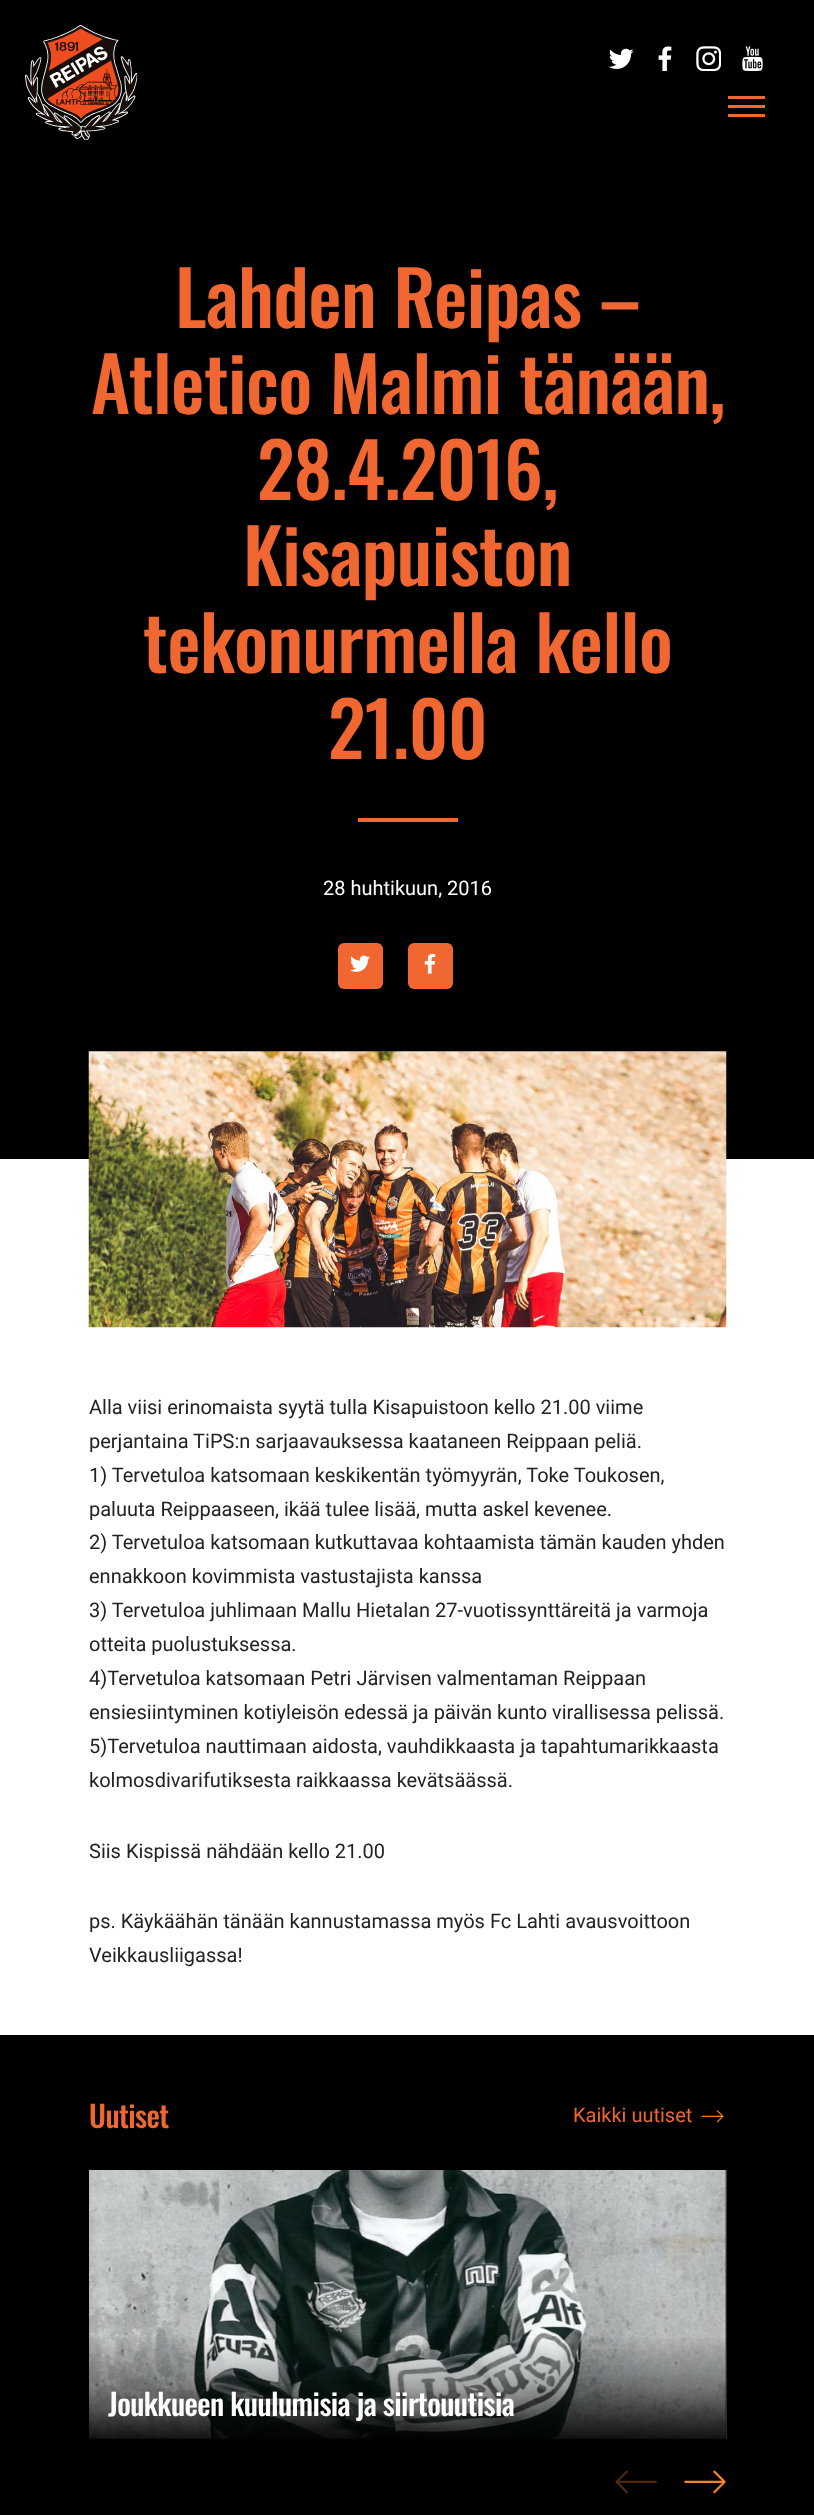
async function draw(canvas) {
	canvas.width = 814;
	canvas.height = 2515;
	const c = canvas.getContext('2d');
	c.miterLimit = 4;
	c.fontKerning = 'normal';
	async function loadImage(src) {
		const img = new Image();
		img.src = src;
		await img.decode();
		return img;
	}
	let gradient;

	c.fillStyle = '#000';
	c.fillRect(0, 0, 814, 2515);
	c.drawImage(await loadImage('img1.png'), 25, 25, 113, 115);
	c.drawImage(await loadImage('img2.png'), 609, 48, 25, 21);
	c.drawImage(await loadImage('img3.png'), 658, 46, 14, 25);
	c.drawImage(await loadImage('img4.png'), 696, 46, 25, 25);
	c.drawImage(await loadImage('img5.png'), 742, 46, 21, 25);
	for (const [x, y, w, h, color] of [
		[728, 96, 37, 3, '#f06731'],
		[728, 105, 37, 3, '#f06731'],
		[728, 114, 37, 3, '#f06731'],
	]) {
		c.fillStyle = color;
		c.fillRect(x, y, w, h);
	}
	c.letterSpacing = '-0.6px';
	c.font = '500 75px Oswald';
	for (const [text, x, y] of [
		['Lahden Reipas –', 175, 328],
		['Atletico Malmi tänään,', 91, 414],
		['28.4.2016,', 257, 500],
		['Kisapuiston', 243, 586],
		['tekonurmella kello', 143, 673],
		['21.00', 328, 759],
	]) {
		c.fillText(text, x, y);
	}
	c.fillRect(358, 818, 100, 4);
	c.letterSpacing = '0px';
	c.font = '20px Roboto';
	c.fillStyle = '#fff';
	c.fillText('28 huhtikuun, 2016', 323, 895);
	c.fillStyle = '#f06731';
	c.beginPath();
	c.roundRect(338, 943, 45, 46, 6);
	c.fill();
	c.drawImage(await loadImage('img6.png'), 350, 955, 20, 17);
	c.beginPath();
	c.roundRect(408, 943, 45, 46, 6);
	c.fill();
	c.drawImage(await loadImage('img7.png'), 424, 954, 12, 20);
	c.fillStyle = '#fff';
	c.fillRect(0, 1159, 814, 876);
	c.drawImage(await loadImage('img8.png'), 88, 1051, 639, 277);
	c.fillStyle = '#222';
	for (const [text, x, y] of [
		['Alla viisi erinomaista syytä tulla Kisapuistoon kello 21.00 viime', 89, 1414],
		['perjantaina TiPS:n sarjaavauksessa kaataneen Reippaan peliä.', 89, 1448],
		['1) Tervetuloa katsomaan keskikentän työmyyrän, Toke Toukosen,', 89, 1482],
		['paluuta Reippaaseen, ikää tulee lisää, mutta askel kevenee.', 89, 1516],
		['2) Tervetuloa katsomaan kutkuttavaa kohtaamista tämän kauden yhden', 89, 1549],
		['ennakkoon kovimmista vastustajista kanssa', 89, 1583],
		['3) Tervetuloa juhlimaan Mallu Hietalan 27-vuotissynttäreitä ja varmoja', 89, 1617],
		['otteita puolustuksessa.', 89, 1651],
		['4)Tervetuloa katsomaan Petri Järvisen valmentaman Reippaan', 89, 1685],
		['ensiesiintyminen kotiyleisön edessä ja päivän kunto virallisessa pelissä.', 89, 1719],
		['5)Tervetuloa nauttimaan aidosta, vauhdikkaasta ja tapahtumarikkaasta', 89, 1753],
		['kolmosdivarifutiksesta raikkaassa kevätsäässä.', 89, 1787],
		['Siis Kispissä nähdään kello 21.00', 89, 1858],
		['ps. Käykäähän tänään kannustamassa myös Fc Lahti avausvoittoon', 89, 1928],
		['Veikkausliigassa!', 89, 1962],
	]) {
		c.fillText(text, x, y);
	}
	c.letterSpacing = '-0.6px';
	c.font = '500 30px Oswald';
	c.fillStyle = '#f06731';
	c.fillText('Uutiset', 89, 2128);
	c.letterSpacing = '0px';
	c.font = '20px Roboto';
	c.fillText('Kaikki uutiset', 573, 2122);
	c.drawImage(await loadImage('img9.png'), 701, 2110, 23, 13);
	c.fillStyle = '#151515';
	c.fillRect(89, 2170, 637, 269);
	c.drawImage(await loadImage('img10.png'), 89, 2170, 638, 269);
	gradient = c.createLinearGradient(408, 2439, 408, 2335);
	gradient.addColorStop(0, '#000000e6');
	gradient.addColorStop(0.5, '#00000059');
	gradient.addColorStop(1, '#00000000');
	c.fillStyle = gradient;
	c.fillRect(89, 2338, 637, 101);
	c.letterSpacing = '-0.6px';
	c.font = '500 30px Oswald';
	c.fillStyle = '#fff';
	c.fillText('Joukkueen kuulumisia ja siirtouutisia', 108, 2416);
	c.drawImage(await loadImage('img11.png'), 615, 2470, 42, 24);
	c.drawImage(await loadImage('img12.png'), 684, 2470, 42, 24);
}

draw(document.querySelector('canvas'));
